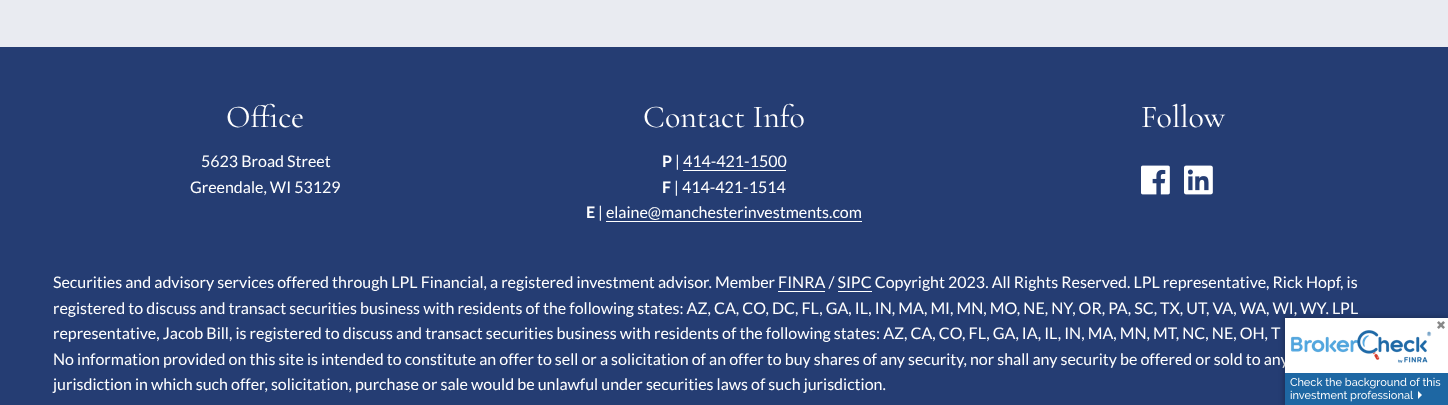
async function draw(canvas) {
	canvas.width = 1448;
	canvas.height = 405;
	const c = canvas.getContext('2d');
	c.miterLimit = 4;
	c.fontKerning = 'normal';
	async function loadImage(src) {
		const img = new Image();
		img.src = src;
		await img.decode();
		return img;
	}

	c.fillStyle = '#253d73';
	c.fillRect(0, 0, 1448, 405);
	c.fillStyle = '#e9ebf1';
	c.fillRect(0, 0, 1448, 47);
	c.font = '32px Cormorant Garamond';
	c.fillStyle = '#fff';
	c.fillText('Office', 226, 127);
	c.font = '16px Lato';
	c.fillText('5623 Broad Street', 201, 167);
	c.fillText('Greendale, WI 53129', 190, 193);
	c.font = '32px Cormorant Garamond';
	c.fillText('Contact Info', 643, 127);
	c.font = 'bold 16px Lato';
	c.fillText('P', 662, 167);
	c.font = '16px Lato';
	c.fillText('| 414-421-1500', 675, 167);
	c.fillRect(683, 170, 103, 1);
	c.font = 'bold 16px Lato';
	c.fillText('F', 662, 193);
	c.font = '16px Lato';
	c.fillText('| 414-421-1514', 674, 193);
	c.font = 'bold 16px Lato';
	c.fillText('E', 586, 218);
	c.font = '16px Lato';
	c.fillText('| elaine@manchesterinvestments.com', 598, 218);
	c.fillRect(606, 221, 256, 1);
	c.font = '32px Cormorant Garamond';
	c.fillText('Follow', 1141, 127);
	c.drawImage(await loadImage('img1.png'), 1141, 165, 29, 30);
	c.drawImage(await loadImage('img2.png'), 1184, 165, 29, 30);
	c.font = '16px Lato';
	c.fillText('Securities and advisory services offered through LPL Financial, a registered investment advisor. Member FINRA / SIPC Copyright 2023. All Rights Reserved. LPL representative, Rick Hopf, is', 53, 288);
	c.fillRect(778, 291, 47, 1);
	c.fillRect(838, 291, 34, 1);
	for (const [text, x, y] of [
		['registered to discuss and transact securities business with residents of the following states: AZ, CA, CO, DC, FL, GA, IL, IN, MA, MI, MN, MO, NE, NY, OR, PA, SC, TX, UT, VA, WA, WI, WY. LPL', 53, 314],
		['representative, Jacob Bill, is registered to discuss and transact securities business with residents of the following states: AZ, CA, CO, FL, GA, IA, IL, IN, MA, MN, MT, NC, NE, OH, T', 53, 339],
		['No information provided on this site is intended to constitute an offer to sell or a solicitation of an offer to buy shares of any security, nor shall any security be offered or sold to any', 53, 365],
		['jurisdiction in which such offer, solicitation, purchase or sale would be unlawful under securities laws of such jurisdiction.', 53, 390],
	]) {
		c.fillText(text, x, y);
	}
	c.fillRect(1285, 318, 163, 55);
	c.save();
	c.beginPath();
	c.moveTo(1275, 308);
	c.lineTo(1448, 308);
	c.lineTo(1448, 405);
	c.lineTo(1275, 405);
	c.closePath();
	c.moveTo(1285, 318);
	c.lineTo(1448, 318);
	c.lineTo(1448, 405);
	c.lineTo(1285, 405);
	c.closePath();
	c.clip('evenodd');
	c.fillStyle = '#00000040';
	c.filter = 'blur(2.5px)';
	c.beginPath();
	c.rect(1284, 317, 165, 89);
	c.fill();
	c.filter = 'none';
	c.restore();
	c.drawImage(await loadImage('img3.png'), 1285, 321, 163, 84);
}

draw(document.querySelector('canvas'));
